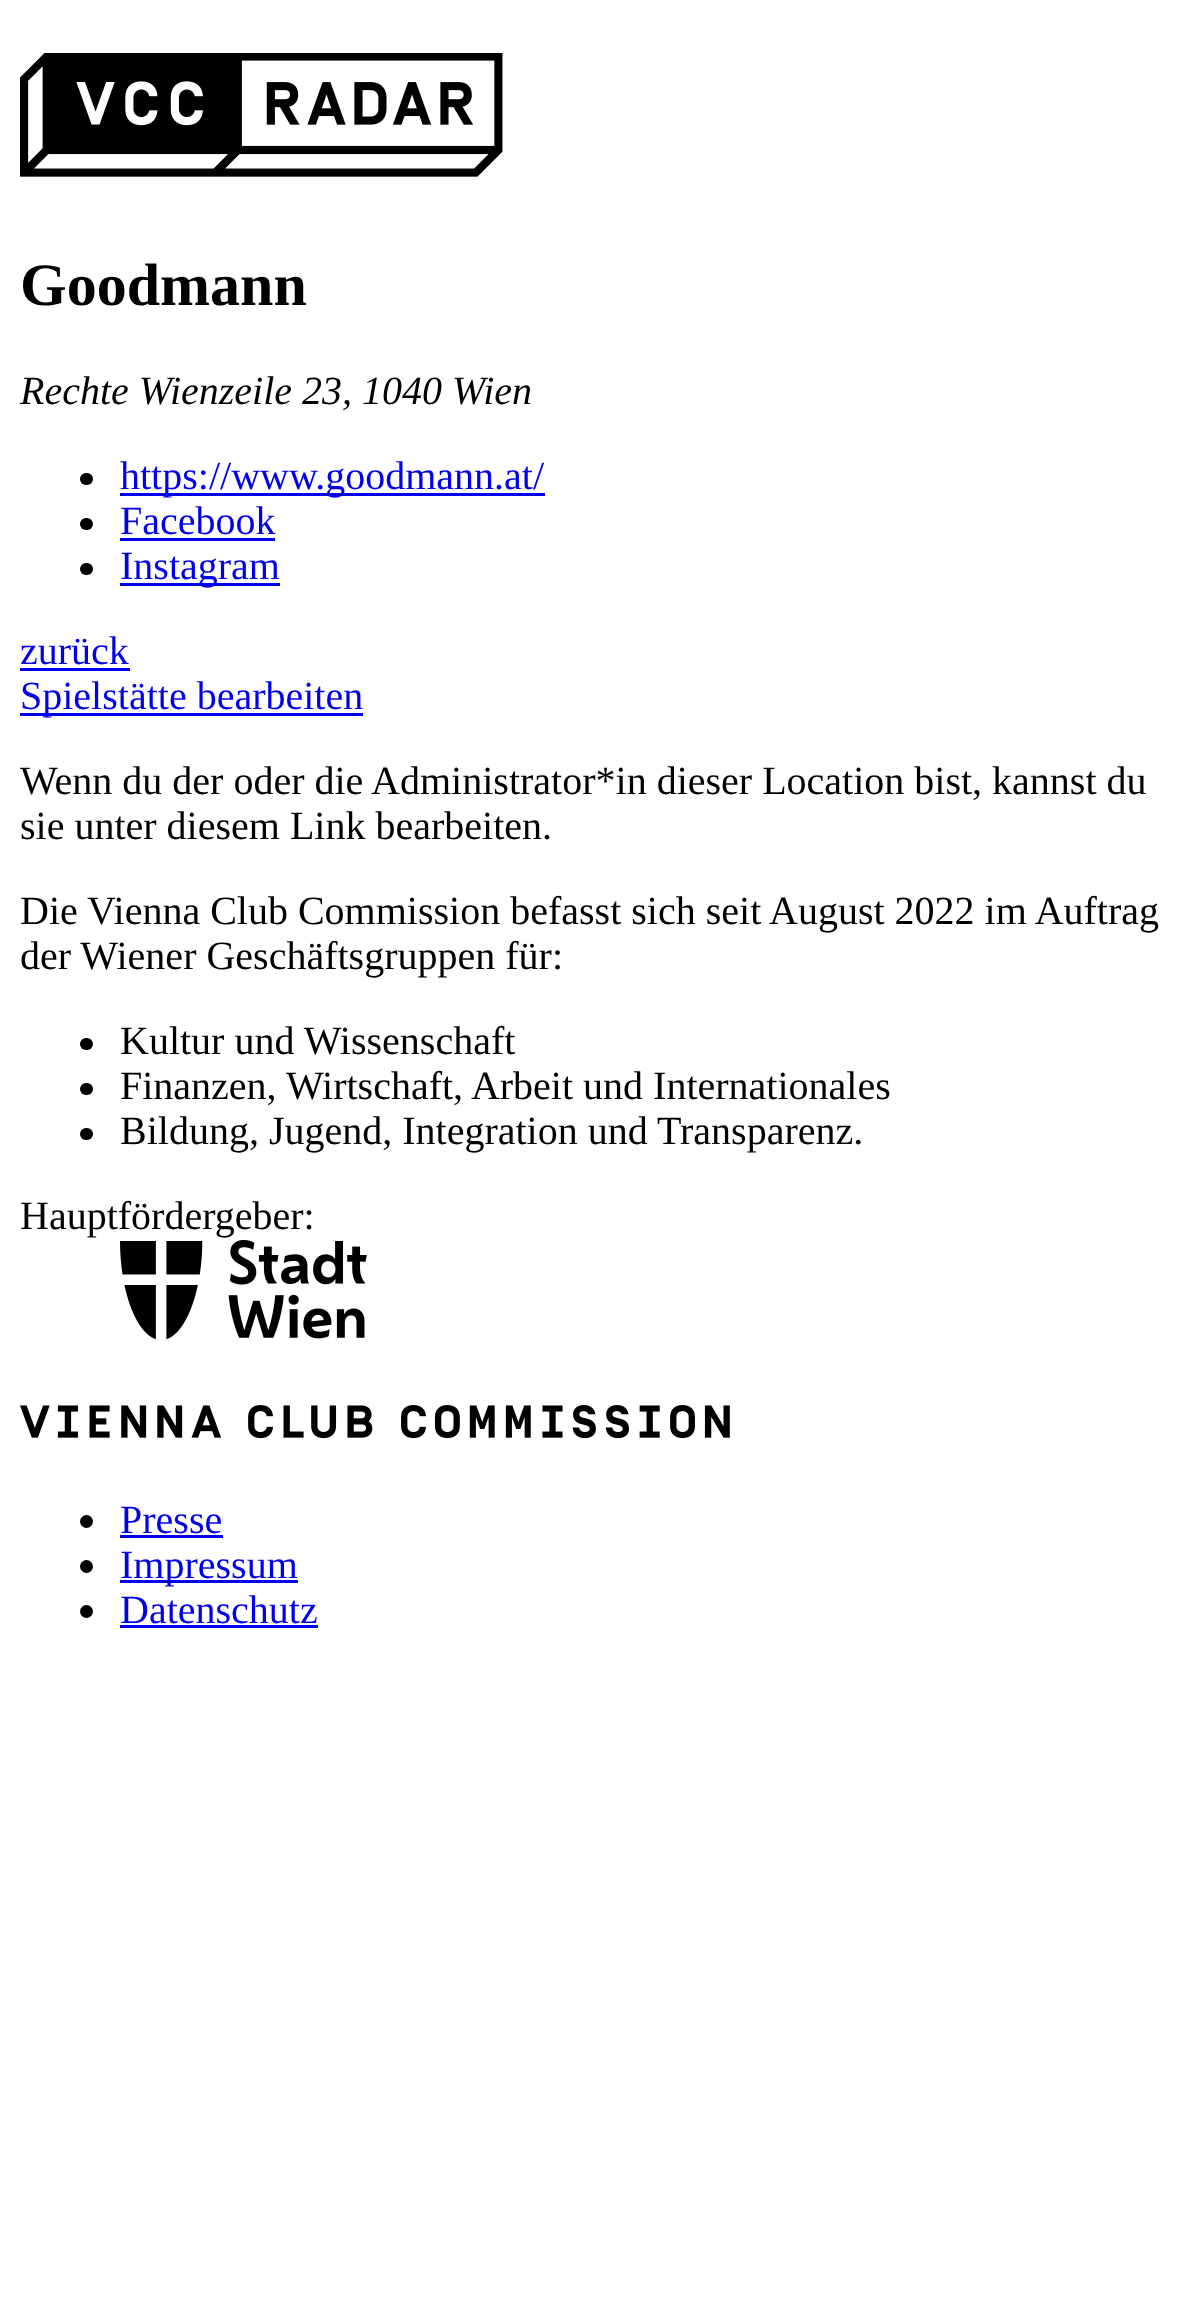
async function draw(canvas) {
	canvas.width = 1203;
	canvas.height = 2306;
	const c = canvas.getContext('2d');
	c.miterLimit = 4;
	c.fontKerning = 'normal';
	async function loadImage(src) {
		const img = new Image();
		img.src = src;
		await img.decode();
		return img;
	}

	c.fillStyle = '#fff';
	c.fillRect(0, 0, 1203, 2306);
	c.drawImage(await loadImage('img1.png'), 20, 53, 483, 124);
	c.font = 'bold 60px Liberation Serif';
	c.fillStyle = '#000';
	c.fillText('Goodmann', 20, 305);
	c.font = 'italic 40px Liberation Serif';
	c.fillText('Rechte Wienzeile 23, 1040 Wien', 20, 404);
	c.beginPath();
	c.roundRect(80, 473, 13, 12, 6);
	c.fill();
	c.fillStyle = '#00e';
	c.fillRect(120, 493, 425, 3);
	c.font = '40px Liberation Serif';
	c.fillText('https://www.goodmann.at/', 120, 489);
	c.fillStyle = '#000';
	c.beginPath();
	c.roundRect(80, 518, 13, 12, 6);
	c.fill();
	c.fillStyle = '#00e';
	c.fillText('Facebook', 120, 534);
	c.fillRect(120, 538, 155, 3);
	c.fillStyle = '#000';
	c.beginPath();
	c.roundRect(80, 563, 13, 12, 6);
	c.fill();
	c.fillStyle = '#00e';
	c.fillRect(120, 583, 160, 3);
	c.fillText('Instagram', 120, 579);
	c.fillText('zurück', 20, 664);
	c.fillRect(20, 668, 110, 3);
	c.fillRect(20, 713, 343, 3);
	c.fillText('Spielstätte bearbeiten', 20, 709);
	c.fillStyle = '#000';
	for (const [text, x, y] of [
		['Wenn du der oder die Administrator*in dieser Location bist, kannst du', 20, 794],
		['sie unter diesem Link bearbeiten.', 20, 839],
		['Die Vienna Club Commission befasst sich seit August 2022 im Auftrag', 20, 924],
		['der Wiener Geschäftsgruppen für:', 20, 969],
	]) {
		c.fillText(text, x, y);
	}
	c.beginPath();
	c.roundRect(80, 1038, 13, 12, 6);
	c.fill();
	c.fillText('Kultur und Wissenschaft', 120, 1054);
	c.beginPath();
	c.roundRect(80, 1083, 13, 12, 6);
	c.fill();
	c.fillText('Finanzen, Wirtschaft, Arbeit und Internationales', 120, 1099);
	c.beginPath();
	c.roundRect(80, 1128, 13, 12, 6);
	c.fill();
	c.fillText('Bildung, Jugend, Integration und Transparenz.', 120, 1144);
	c.fillText('Hauptfördergeber:', 20, 1229);
	c.drawImage(await loadImage('img2.png'), 120, 1240, 247, 100);
	c.drawImage(await loadImage('img3.png'), 20, 1405, 710, 34);
	c.beginPath();
	c.arc(86.5, 1521.5, 6.5, 0, 2 * Math.PI);
	c.fill();
	c.fillStyle = '#00e';
	c.fillText('Presse', 120, 1533);
	c.fillRect(120, 1535, 103, 3);
	c.fillStyle = '#000';
	c.beginPath();
	c.arc(86.5, 1566.5, 6.5, 0, 2 * Math.PI);
	c.fill();
	c.fillStyle = '#00e';
	c.fillRect(120, 1580, 178, 3);
	c.fillText('Impressum', 120, 1578);
	c.fillStyle = '#000';
	c.beginPath();
	c.arc(86.5, 1611.5, 6.5, 0, 2 * Math.PI);
	c.fill();
	c.fillStyle = '#00e';
	c.fillText('Datenschutz', 120, 1623);
	c.fillRect(120, 1625, 198, 3);
}

draw(document.querySelector('canvas'));
